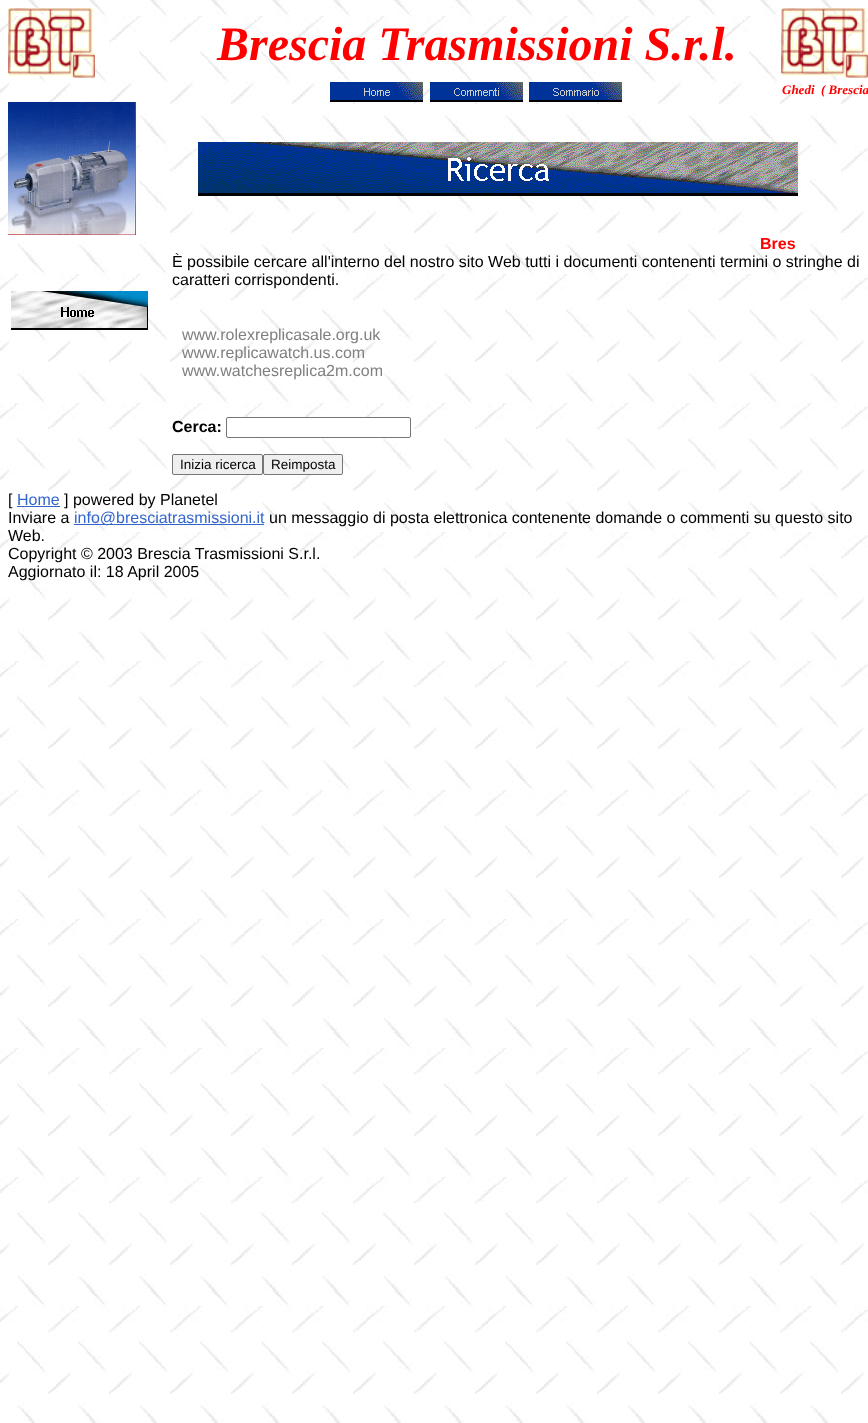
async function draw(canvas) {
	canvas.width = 868;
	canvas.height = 1423;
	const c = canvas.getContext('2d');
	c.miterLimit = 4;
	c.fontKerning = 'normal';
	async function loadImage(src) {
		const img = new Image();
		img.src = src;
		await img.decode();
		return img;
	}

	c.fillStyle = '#fff';
	c.fillRect(0, 0, 868, 1423);
	c.drawImage(await loadImage('img1.png'), 0, 0, 868, 1423);
	c.drawImage(await loadImage('img2.png'), 8, 8, 87, 70);
	c.font = 'italic bold 48px Liberation Serif';
	c.fillStyle = '#f00';
	c.fillText('Brescia Trasmissioni S.r.l.', 217, 60);
	c.drawImage(await loadImage('img3.png'), 781, 8, 87, 70);
	c.drawImage(await loadImage('img4.png'), 330, 82, 93, 20);
	c.drawImage(await loadImage('img5.png'), 430, 82, 93, 20);
	c.drawImage(await loadImage('img6.png'), 529, 82, 93, 20);
	c.font = 'italic bold 13px Liberation Serif';
	c.fillText('Ghedi', 782, 94);
	c.fillText('( Brescia', 821, 94);
	c.drawImage(await loadImage('img7.png'), 8, 102, 128, 133);
	c.drawImage(await loadImage('img8.png'), 198, 142, 600, 54);
	c.font = 'bold 16px Liberation Sans';
	c.fillText('Bres', 760, 249);
	c.drawImage(await loadImage('img9.png'), 11, 291, 137, 39);
	c.font = '16px Liberation Sans';
	c.fillStyle = '#000';
	c.fillText('È possibile cercare all\'interno del nostro sito Web tutti i documenti contenenti termini o stringhe di', 172, 267);
	c.fillText('caratteri corrispondenti.', 172, 285);
	c.fillStyle = '#808080';
	for (const [text, x, y] of [
		['www.rolexreplicasale.org.uk', 182, 340],
		['www.replicawatch.us.com', 182, 358],
		['www.watchesreplica2m.com', 182, 376],
	]) {
		c.fillText(text, x, y);
	}
	c.font = 'bold 16px Liberation Sans';
	c.fillStyle = '#000';
	c.fillText('Cerca:', 172, 432);
	c.fillStyle = '#fff';
	c.beginPath();
	c.roundRect(226.5, 417.5, 184, 20, 1.5);
	c.fill();
	c.strokeStyle = '#767676';
	c.stroke();
	c.fillStyle = '#efefef';
	c.beginPath();
	c.roundRect(172.5, 454.5, 90, 20, 1.5);
	c.fill();
	c.stroke();
	c.font = '13.5px Liberation Sans';
	c.fillStyle = '#000';
	c.fillText('Inizia ricerca', 180, 469);
	c.fillStyle = '#efefef';
	c.beginPath();
	c.roundRect(263.5, 454.5, 79, 20, 1.5);
	c.fill();
	c.stroke();
	c.fillStyle = '#000';
	c.fillText('Reimposta', 271, 469);
	c.font = '16px Liberation Sans';
	c.fillText('[', 8, 505);
	c.fillStyle = '#36c';
	c.fillText('Home', 17, 505);
	c.fillRect(17, 506, 43, 1);
	c.fillStyle = '#000';
	c.fillText('] powered by Planetel', 64, 505);
	c.fillText('Inviare a', 8, 523);
	c.fillStyle = '#36c';
	c.fillRect(74, 524, 190, 1);
	c.fillText('info@bresciatrasmissioni.it', 74, 523);
	c.fillStyle = '#000';
	for (const [text, x, y] of [
		['un messaggio di posta elettronica contenente domande o commenti su questo sito', 269, 523],
		['Web.', 8, 541],
		['Copyright © 2003 Brescia Trasmissioni S.r.l.', 8, 559],
		['Aggiornato il: 18 April 2005', 8, 577],
	]) {
		c.fillText(text, x, y);
	}
}

draw(document.querySelector('canvas'));
